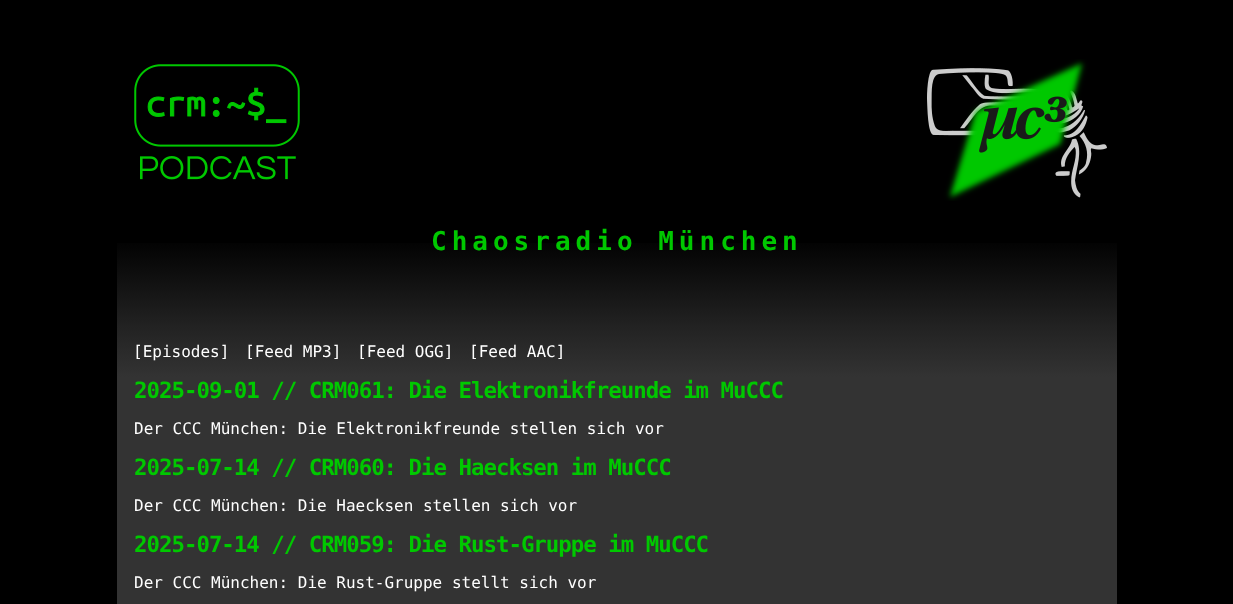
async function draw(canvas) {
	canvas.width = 1233;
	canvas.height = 604;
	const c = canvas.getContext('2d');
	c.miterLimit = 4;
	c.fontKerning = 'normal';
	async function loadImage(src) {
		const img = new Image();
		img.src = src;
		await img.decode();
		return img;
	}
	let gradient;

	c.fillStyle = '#000';
	c.fillRect(0, 0, 1233, 604);
	gradient = c.createLinearGradient(617, 26, 617, 326);
	gradient.addColorStop(0.7, '#000');
	gradient.addColorStop(1, '#222');
	c.fillStyle = gradient;
	c.fillRect(117, 243, 1000, 83);
	c.drawImage(await loadImage('img1.png'), 134, 64, 166, 116);
	c.drawImage(await loadImage('img2.png'), 927, 59, 180, 142);
	c.letterSpacing = '5px';
	c.font = 'bold 26px DejaVu Sans Mono';
	c.fillStyle = '#00c800';
	c.fillText('Chaosradio München', 431, 250);
	gradient = c.createLinearGradient(617, 326, 617, 377);
	gradient.addColorStop(0, '#222');
	gradient.addColorStop(1, '#333');
	c.fillStyle = gradient;
	c.fillRect(117, 326, 1000, 51);
	c.letterSpacing = '0px';
	c.font = '16px DejaVu Sans Mono';
	c.fillStyle = '#fff';
	for (const [text, x, y] of [
		['[Episodes]', 133, 357],
		['[Feed MP3]', 245, 357],
		['[Feed OGG]', 357, 357],
		['[Feed AAC]', 469, 357],
	]) {
		c.fillText(text, x, y);
	}
	c.fillStyle = '#333';
	c.fillRect(117, 377, 1000, 227);
	c.letterSpacing = '-1px';
	c.font = 'bold 22.4px DejaVu Sans Mono';
	c.fillStyle = '#00c800';
	c.fillText('2025-09-01 // CRM061: Die Elektronikfreunde im MuCCC', 134, 398);
	c.letterSpacing = '0px';
	c.font = '16px DejaVu Sans Mono';
	c.fillStyle = '#fff';
	c.fillText('Der CCC München: Die Elektronikfreunde stellen sich vor', 134, 434);
	c.letterSpacing = '-1px';
	c.font = 'bold 22.4px DejaVu Sans Mono';
	c.fillStyle = '#00c800';
	c.fillText('2025-07-14 // CRM060: Die Haecksen im MuCCC', 134, 475);
	c.letterSpacing = '0px';
	c.font = '16px DejaVu Sans Mono';
	c.fillStyle = '#fff';
	c.fillText('Der CCC München: Die Haecksen stellen sich vor', 134, 511);
	c.letterSpacing = '-1px';
	c.font = 'bold 22.4px DejaVu Sans Mono';
	c.fillStyle = '#00c800';
	c.fillText('2025-07-14 // CRM059: Die Rust-Gruppe im MuCCC', 134, 552);
	c.letterSpacing = '0px';
	c.font = '16px DejaVu Sans Mono';
	c.fillStyle = '#fff';
	c.fillText('Der CCC München: Die Rust-Gruppe stellt sich vor', 134, 588);
}

draw(document.querySelector('canvas'));
